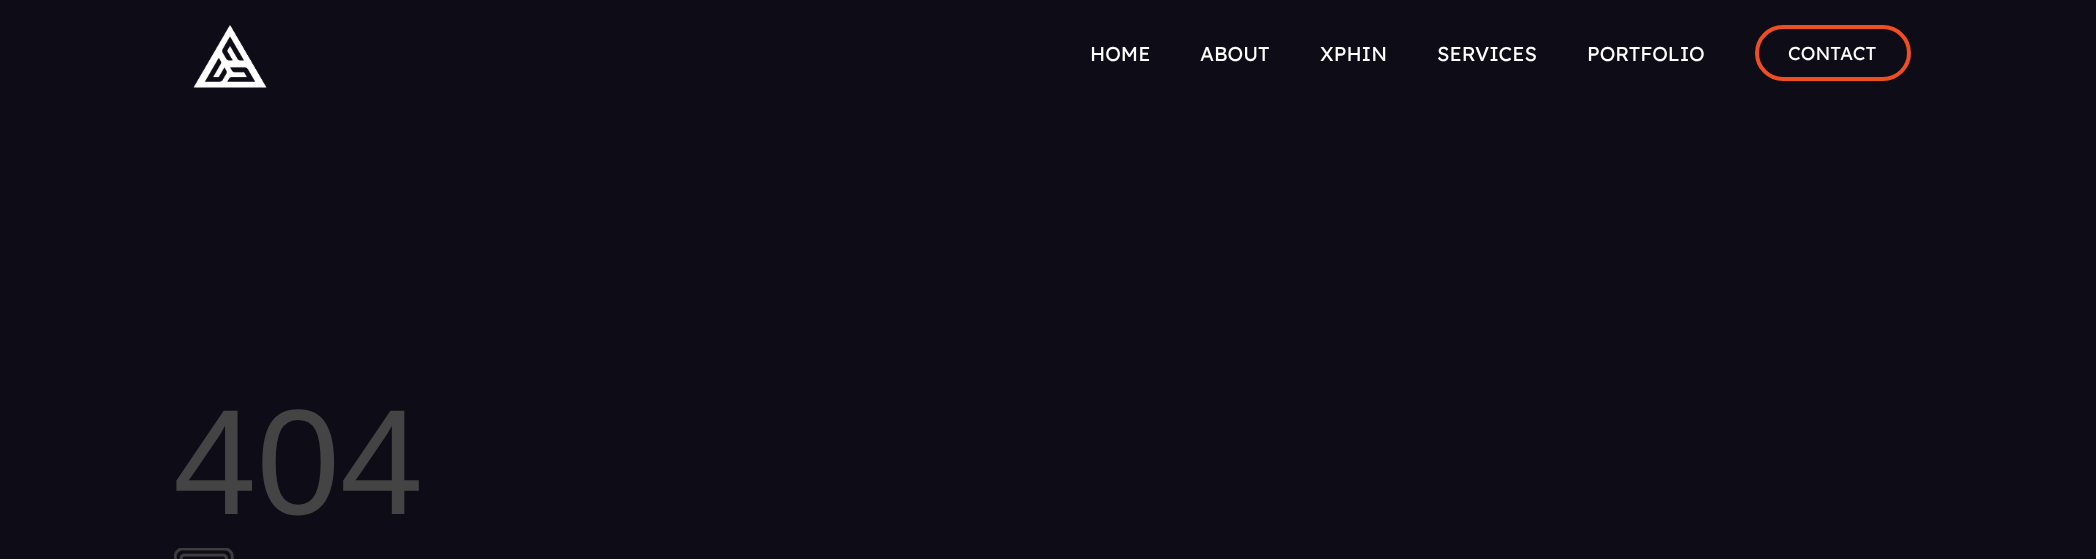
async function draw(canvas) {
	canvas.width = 2096;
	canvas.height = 559;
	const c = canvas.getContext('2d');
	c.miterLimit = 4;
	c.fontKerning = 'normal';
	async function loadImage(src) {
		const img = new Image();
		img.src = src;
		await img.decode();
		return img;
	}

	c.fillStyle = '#0e0d17';
	c.fillRect(0, 0, 2096, 559);
	c.drawImage(await loadImage('img1.png'), 193, 25, 74, 63);
	c.font = '20px Lexend';
	c.fillStyle = '#fff';
	for (const [text, x, y] of [
		['HOME', 1090, 61],
		['ABOUT', 1200, 61],
		['XPHIN', 1320, 61],
		['SERVICES', 1437, 61],
		['PORTFOLIO', 1587, 61],
	]) {
		c.fillText(text, x, y);
	}
	c.beginPath();
	c.roundRect(1757, 27, 152, 52, 26);
	c.strokeStyle = '#ef4e23';
	c.lineWidth = 4;
	c.stroke();
	c.font = '18.75px Lexend';
	c.fillText('CONTACT', 1788, 60);
	c.font = '150px Liberation Sans';
	c.fillStyle = '#444';
	c.fillText('404', 173, 514);
	c.drawImage(await loadImage('img2.png'), 174, 548, 60, 11);
}

draw(document.querySelector('canvas'));
